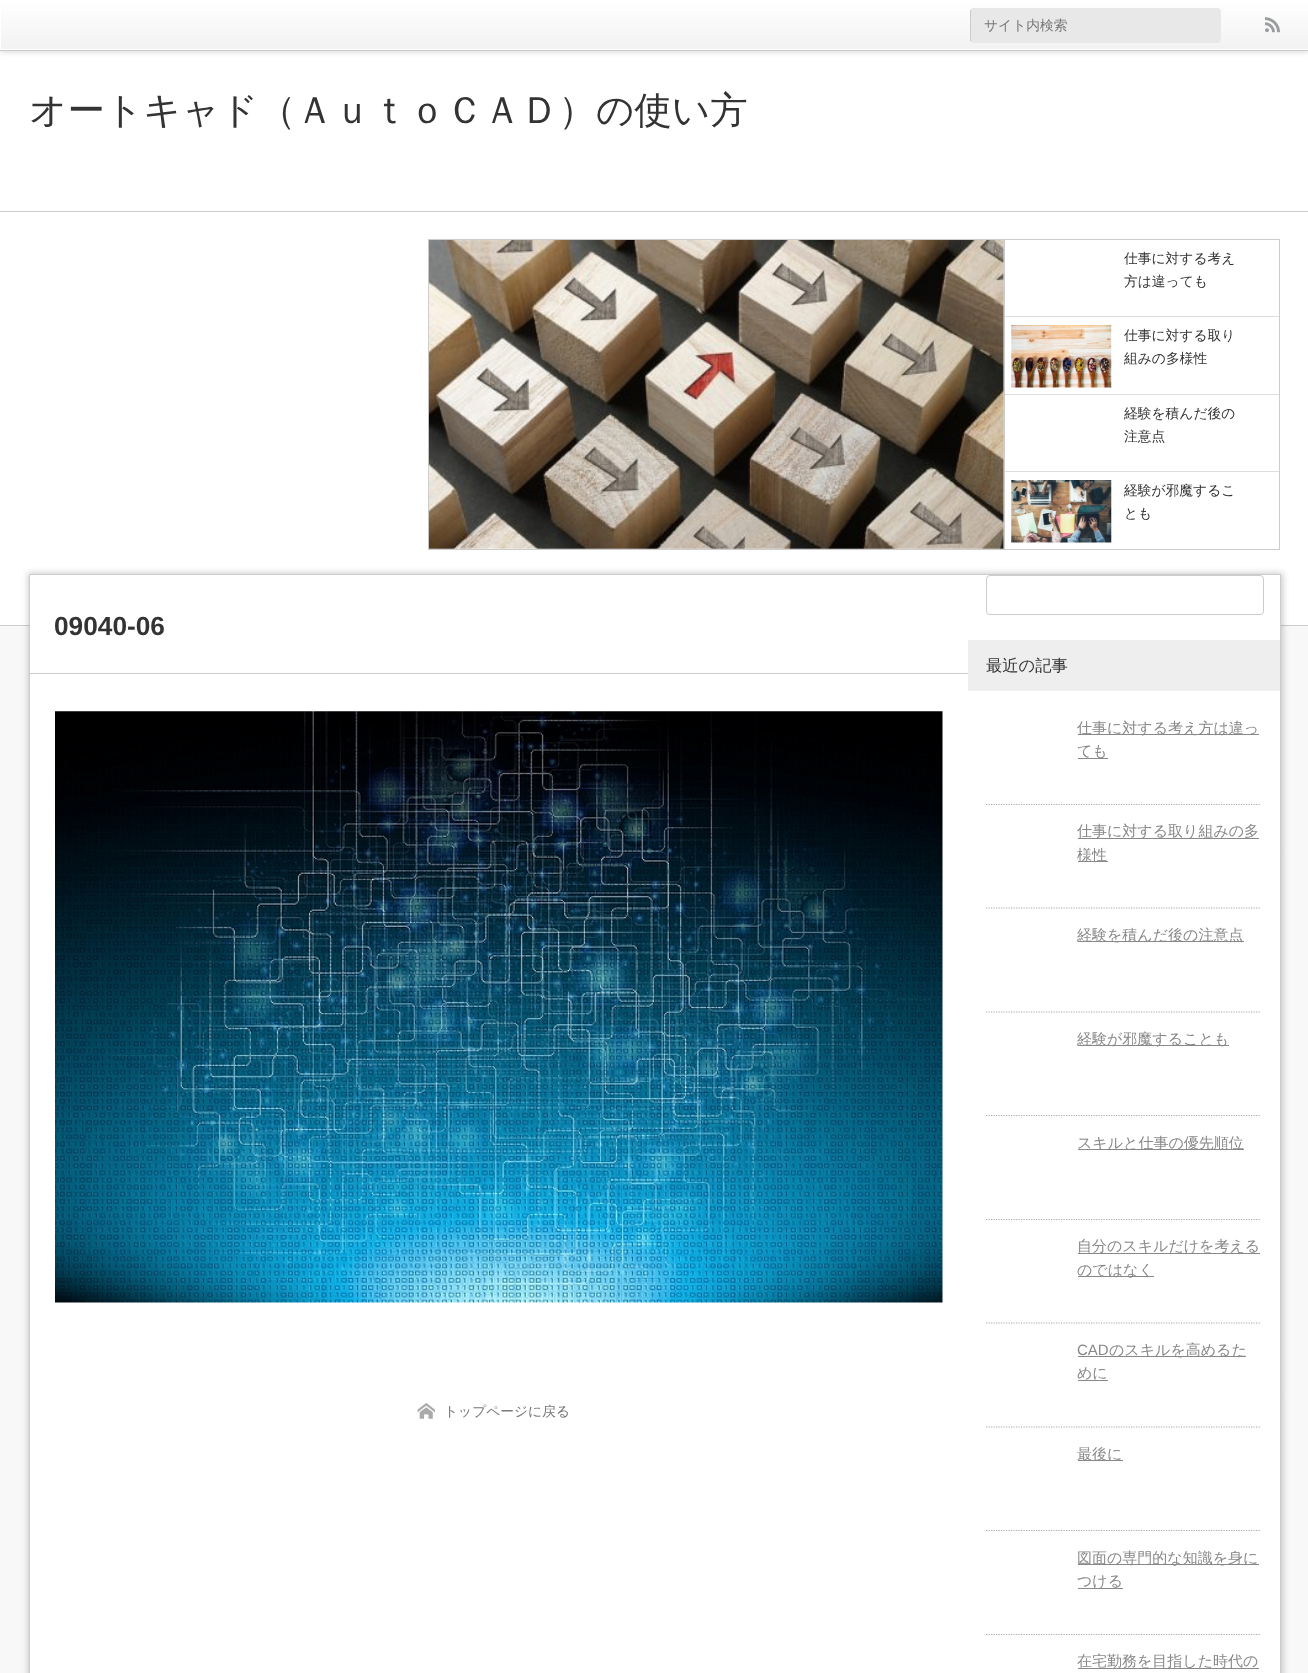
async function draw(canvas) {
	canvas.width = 1308;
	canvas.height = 1673;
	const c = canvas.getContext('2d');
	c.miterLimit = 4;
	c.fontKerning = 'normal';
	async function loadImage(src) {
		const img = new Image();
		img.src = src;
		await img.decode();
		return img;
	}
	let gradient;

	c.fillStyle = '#f8f8f8';
	c.fillRect(0, 0, 1308, 1673);
	c.fillStyle = '#fff';
	c.fillRect(0, 51, 1308, 574);
	c.fillStyle = '#00000033';
	c.filter = 'blur(3px)';
	c.beginPath();
	c.rect(0, 0, 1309, 51);
	c.fill();
	c.filter = 'none';
	gradient = c.createLinearGradient(654, 0, 654, 50);
	gradient.addColorStop(0, '#fff');
	gradient.addColorStop(1, '#f2f2f2');
	c.fillStyle = gradient;
	c.fillRect(1, 1, 1307, 48);
	c.strokeStyle = '#fff';
	c.strokeRect(0.5, 0.5, 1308, 49);
	c.fillStyle = '#ccc';
	c.fillRect(0, 50, 1308, 1);
	c.fillStyle = '#e8e8e8';
	c.beginPath();
	c.roundRect(970, 8, 251, 35, 4);
	c.fill();
	c.fillStyle = '#ccc';
	c.fillRect(970, 10, 1, 31);
	c.font = '500 13.75px WenQuanYi Zen Hei';
	c.fillStyle = '#777';
	c.fillText('サイト内検索', 984, 30);
	c.drawImage(await loadImage('img1.png'), 1265, 17, 15, 16);
	c.fillStyle = '#ccc';
	c.fillRect(0, 211, 1308, 1);
	c.font = '500 37.5px WenQuanYi Zen Hei';
	c.fillStyle = '#333';
	c.fillText('オートキャド（ＡｕｔｏＣＡＤ）の使い方', 29, 123);
	c.fillStyle = '#ccc';
	c.fillRect(0, 625, 1308, 1);
	c.strokeStyle = '#ccc';
	c.strokeRect(428.5, 239.5, 851, 310);
	c.drawImage(await loadImage('img2.png'), 428, 240, 576, 309);
	for (const [x, y, w, h, color] of [
		[1003, 240, 1, 309, '#ffffff33'],
		[1003, 240, 1, 309, '#0000001a'],
		[1004, 240, 1, 309, '#ccc'],
		[1005, 316, 274, 1, '#ddd'],
	]) {
		c.fillStyle = color;
		c.fillRect(x, y, w, h);
	}
	c.font = '500 13.75px WenQuanYi Zen Hei';
	c.fillStyle = '#333';
	c.fillText('仕事に対する考え', 1124, 263);
	c.fillText('方は違っても', 1124, 286);
	c.fillStyle = '#ddd';
	c.fillRect(1005, 394, 274, 1);
	c.drawImage(await loadImage('img3.png'), 1011, 325, 101, 63);
	c.fillStyle = '#333';
	c.fillText('仕事に対する取り', 1124, 340);
	c.fillText('組みの多様性', 1124, 363);
	c.fillStyle = '#ddd';
	c.fillRect(1005, 471, 274, 1);
	c.fillStyle = '#333';
	c.fillText('経験を積んだ後の', 1124, 418);
	c.fillText('注意点', 1124, 441);
	c.drawImage(await loadImage('img4.png'), 1011, 480, 101, 63);
	c.fillText('経験が邪魔するこ', 1124, 495);
	c.fillText('とも', 1124, 518);
	c.fillStyle = '#00000033';
	c.filter = 'blur(3px)';
	c.beginPath();
	c.rect(28, 573, 1255, 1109);
	c.fill();
	c.filter = 'none';
	c.fillStyle = '#fff';
	c.beginPath();
	c.rect(29.5, 574.5, 1251, 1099);
	c.fill();
	c.stroke();
	c.fillStyle = '#ccc';
	c.fillRect(30, 673, 938, 1);
	c.font = 'bold 26.25px Liberation Sans';
	c.fillStyle = '#333';
	c.fillText('09040-06', 54, 635);
	c.drawImage(await loadImage('img5.png'), 55, 711, 888, 592);
	c.drawImage(await loadImage('img6.png'), 417, 1403, 18, 16);
	c.font = '500 13.75px WenQuanYi Zen Hei';
	c.fillStyle = '#777';
	c.fillText('トップページに戻る', 444, 1416);
	c.beginPath();
	c.roundRect(986.5, 575.5, 277, 39, 3.5);
	c.stroke();
	c.fillStyle = '#eee';
	c.fillRect(968, 640, 312, 51);
	c.font = '500 16.25px WenQuanYi Zen Hei';
	c.fillStyle = '#333';
	c.fillText('最近の記事', 986, 671);
	c.beginPath();
	c.moveTo(986, 804.5);
	c.lineTo(1261, 804.5);
	c.strokeStyle = '#aaa';
	c.lineWidth = 1.2;
	c.setLineDash([1.25, 1.25]);
	c.stroke();
	c.fillStyle = '#888';
	c.fillRect(1078, 734, 181, 1);
	c.font = '500 15px WenQuanYi Zen Hei';
	c.fillText('仕事に対する考え方は違っ', 1077, 733);
	c.fillRect(1078, 758, 30, 1);
	c.fillText('ても', 1077, 756);
	c.beginPath();
	c.moveTo(986, 908);
	c.lineTo(1261, 908);
	c.stroke();
	c.fillRect(1078, 838, 181, 1);
	c.fillText('仕事に対する取り組みの多', 1077, 836);
	c.fillRect(1078, 861, 30, 1);
	c.fillText('様性', 1077, 860);
	c.beginPath();
	c.moveTo(986, 1012);
	c.lineTo(1261, 1012);
	c.stroke();
	c.fillRect(1078, 941, 166, 1);
	c.fillText('経験を積んだ後の注意点', 1077, 940);
	c.beginPath();
	c.moveTo(986, 1115.5);
	c.lineTo(1261, 1115.5);
	c.stroke();
	c.fillRect(1078, 1045, 151, 1);
	c.fillText('経験が邪魔することも', 1077, 1044);
	c.beginPath();
	c.moveTo(986, 1219.5);
	c.lineTo(1261, 1219.5);
	c.stroke();
	c.fillRect(1078, 1149, 166, 1);
	c.fillText('スキルと仕事の優先順位', 1077, 1148);
	c.beginPath();
	c.moveTo(986, 1323);
	c.lineTo(1261, 1323);
	c.stroke();
	c.fillRect(1078, 1253, 182, 1);
	c.fillText('自分のスキルだけを考える', 1077, 1251);
	c.fillRect(1078, 1276, 76, 1);
	c.fillText('のではなく', 1077, 1275);
	c.beginPath();
	c.moveTo(986, 1427);
	c.lineTo(1261, 1427);
	c.stroke();
	c.font = '15px Liberation Sans';
	c.fillText('CAD', 1077, 1355);
	c.fillRect(1078, 1356, 168, 1);
	c.font = '500 15px WenQuanYi Zen Hei';
	c.fillText('のスキルを高めるた', 1109, 1355);
	c.fillText('めに', 1077, 1378);
	c.fillRect(1078, 1380, 30, 1);
	c.beginPath();
	c.moveTo(986, 1530.5);
	c.lineTo(1261, 1530.5);
	c.stroke();
	c.fillRect(1078, 1460, 45, 1);
	c.fillText('最後に', 1077, 1459);
	c.beginPath();
	c.moveTo(986, 1634.5);
	c.lineTo(1261, 1634.5);
	c.stroke();
	c.fillRect(1078, 1564, 181, 1);
	c.fillText('図面の専門的な知識を身に', 1077, 1563);
	c.fillRect(1078, 1588, 45, 1);
	c.fillText('つける', 1077, 1586);
	c.fillRect(1078, 1668, 181, 1);
	c.fillText('在宅勤務を目指した時代の', 1077, 1666);
}

draw(document.querySelector('canvas'));
